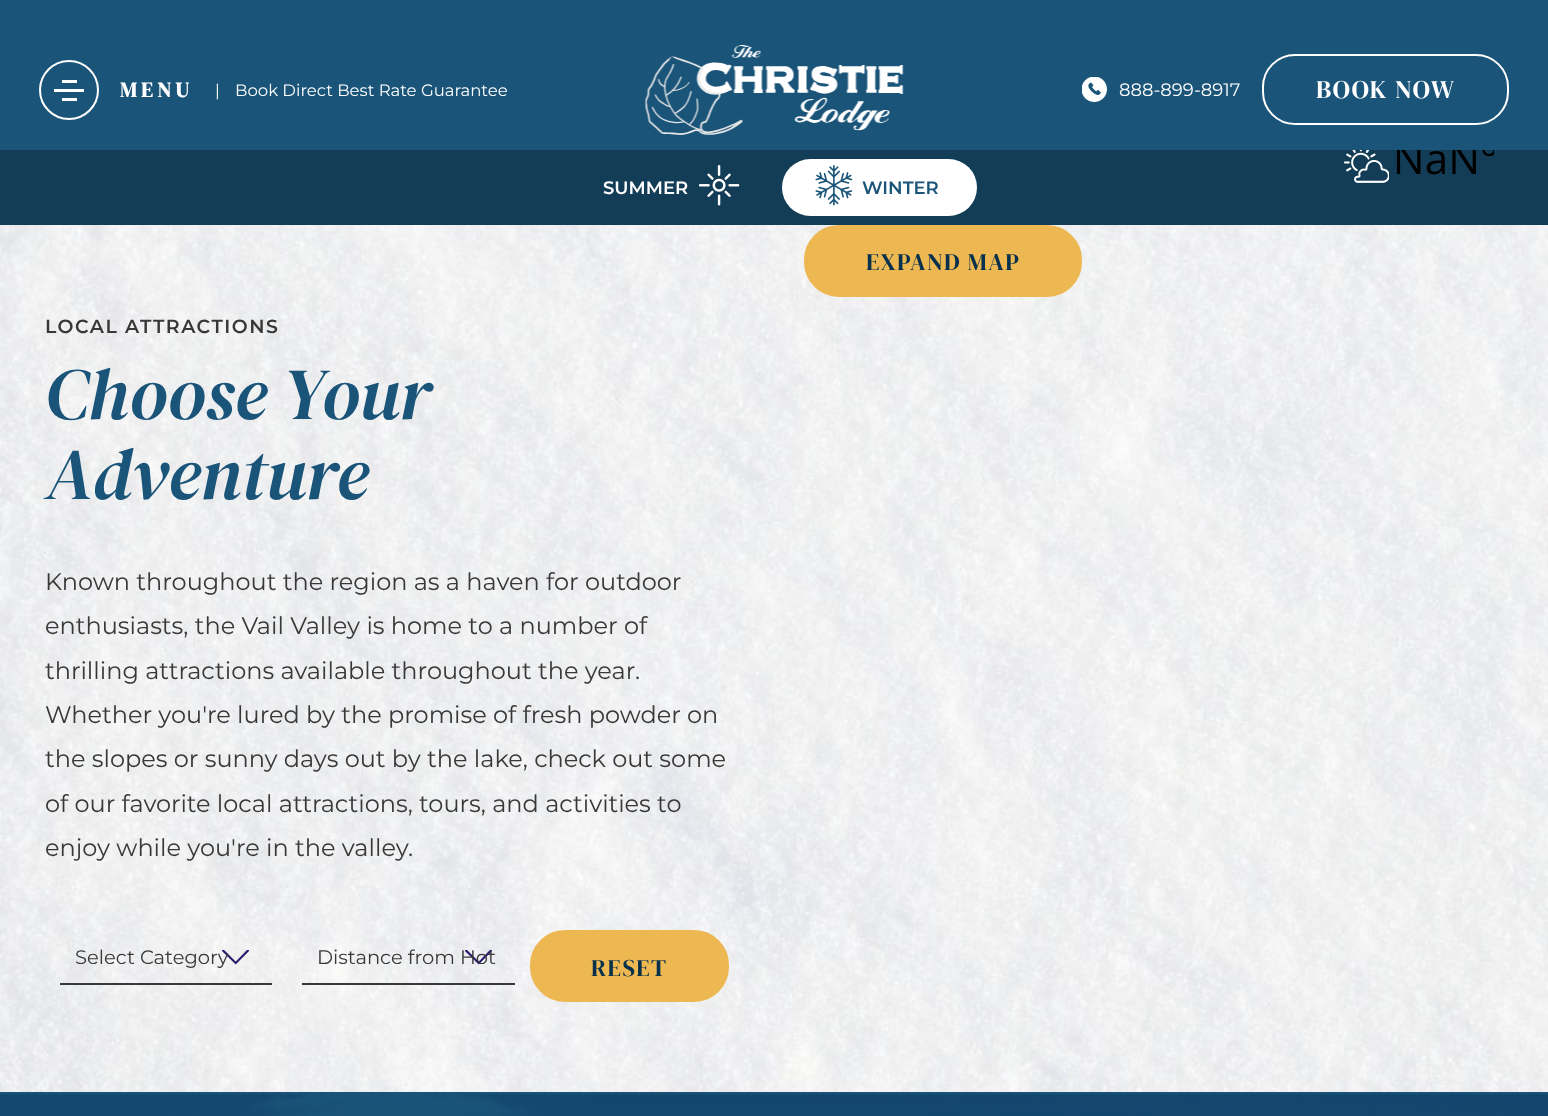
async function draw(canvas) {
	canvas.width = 1548;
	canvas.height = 1116;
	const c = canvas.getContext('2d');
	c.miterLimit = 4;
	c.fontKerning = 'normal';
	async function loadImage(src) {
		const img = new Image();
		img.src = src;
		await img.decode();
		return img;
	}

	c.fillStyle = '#fff';
	c.fillRect(0, 0, 1548, 1116);
	c.drawImage(await loadImage('img1.png'), 0, 225, 1548, 867);
	c.fillStyle = '#1a5479';
	c.fillRect(0, 0, 1548, 150);
	c.beginPath();
	c.arc(69, 90, 29, 0, 2 * Math.PI);
	c.strokeStyle = '#fff';
	c.lineWidth = 2;
	c.stroke();
	for (const [x, y, w, h, color] of [
		[62, 80, 15, 3, '#fff'],
		[54, 89, 30, 3, '#fff'],
		[62, 98, 15, 3, '#fff'],
	]) {
		c.fillStyle = color;
		c.fillRect(x, y, w, h);
	}
	c.letterSpacing = '4.5px';
	c.font = 'bold 21px DM Serif Display';
	c.fillText('MENU', 120, 97);
	c.letterSpacing = '0px';
	c.font = '16.5px Montserrat';
	c.fillText('|', 215, 96);
	c.fillText('Book Direct Best Rate Guarantee', 235, 96);
	c.drawImage(await loadImage('img2.png'), 645, 45, 259, 90);
	c.drawImage(await loadImage('img3.png'), 1082, 77, 25, 25);
	c.font = '18px Montserrat';
	c.fillText('888-899-8917', 1119, 96);
	c.beginPath();
	c.roundRect(1263, 55, 245, 69, 32);
	c.stroke();
	c.letterSpacing = '1.5px';
	c.font = '25.5px DM Serif Display';
	c.fillText('BOOK NOW', 1316, 98);
	c.fillStyle = '#133d57';
	c.fillRect(0, 150, 1548, 75);
	c.drawImage(await loadImage('img4.png'), 1344, 150, 45, 33);
	c.drawImage(await loadImage('img5.png'), 1396, 150, 98, 25);
	c.letterSpacing = '0px';
	c.font = '600 18px Montserrat';
	c.fillStyle = '#fff';
	c.fillText('SUMMER', 603, 194);
	c.drawImage(await loadImage('img6.png'), 698, 165, 42, 41);
	c.beginPath();
	c.roundRect(782, 159, 195, 57, 28.5);
	c.fill();
	c.drawImage(await loadImage('img7.png'), 815, 165, 38, 41);
	c.fillStyle = '#1a5479';
	c.fillText('WINTER', 862, 194);
	c.fillStyle = '#edb752';
	c.beginPath();
	c.roundRect(805, 226, 276, 70, 34);
	c.fill();
	c.strokeStyle = '#edb752';
	c.stroke();
	c.letterSpacing = '1.5px';
	c.font = '24px DM Serif Display';
	c.fillStyle = '#06304b';
	c.fillText('EXPAND MAP', 866, 270);
	c.font = '600 18.9px Montserrat';
	c.fillStyle = '#383838';
	c.fillText('LOCAL ATTRACTIONS', 45, 333);
	c.letterSpacing = '0px';
	c.font = 'italic 73px DM Serif Display';
	c.fillStyle = '#1a5479';
	c.fillText('Choose Your', 45, 419);
	c.fillText('Adventure', 45, 499);
	c.font = '24px Montserrat';
	c.fillStyle = '#383838';
	for (const [text, x, y] of [
		['Known throughout the region as a haven for outdoor', 45, 590],
		['enthusiasts, the Vail Valley is home to a number of', 45, 634],
		['thrilling attractions available throughout the year.', 45, 679],
		['Whether you\'re lured by the promise of fresh powder on', 45, 723],
		['the slopes or sunny days out by the lake, check out some', 45, 767],
		['of our favorite local attractions, tours, and activities to', 45, 812],
		['enjoy while you\'re in the valley.', 45, 856],
	]) {
		c.fillText(text, x, y);
	}
	c.drawImage(await loadImage('img8.png'), 222, 950, 27, 15);
	c.fillRect(60, 983, 212, 2);
	c.font = '19.5px Montserrat';
	c.fillText('Select Category', 75, 964);
	c.drawImage(await loadImage('img9.png'), 465, 950, 27, 15);
	c.fillRect(302, 983, 213, 2);
	c.fillText('Distance from Hot', 317, 964);
	c.fillStyle = '#edb752';
	c.beginPath();
	c.roundRect(531, 931, 197, 70, 34);
	c.fill();
	c.stroke();
	c.letterSpacing = '1.5px';
	c.font = '24px DM Serif Display';
	c.fillStyle = '#06304b';
	c.fillText('RESET', 591, 976);
	c.fillStyle = '#1a5479';
	c.fillRect(0, 1092, 1548, 1);
	c.drawImage(await loadImage('img10.png'), 0, 1093, 1548, 23);
}

draw(document.querySelector('canvas'));
